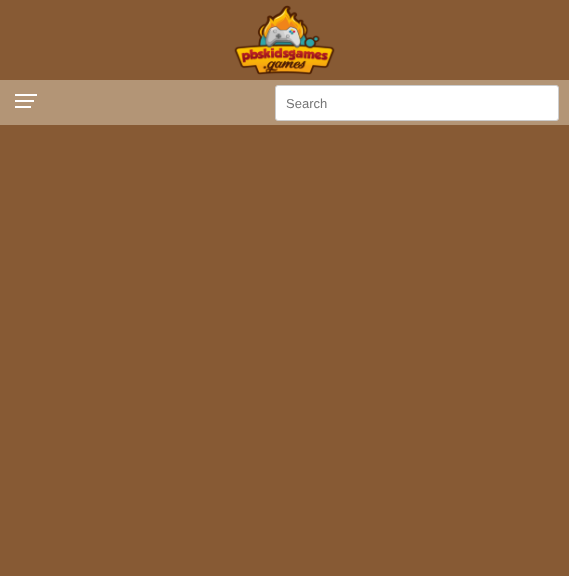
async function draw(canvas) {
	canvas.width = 569;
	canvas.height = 576;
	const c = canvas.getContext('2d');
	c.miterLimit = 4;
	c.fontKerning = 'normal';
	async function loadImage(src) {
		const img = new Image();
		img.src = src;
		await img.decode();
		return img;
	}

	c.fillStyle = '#875a34';
	c.fillRect(0, 0, 569, 576);
	for (const [x, y, w, h, color] of [
		[0, 80, 569, 45, '#b39576'],
		[15, 94, 22, 2, '#fff'],
		[15, 100, 19, 2, '#fff'],
		[15, 106, 16, 2, '#fff'],
	]) {
		c.fillStyle = color;
		c.fillRect(x, y, w, h);
	}
	c.drawImage(await loadImage('img1.png'), 234, 5, 101, 70);
	c.beginPath();
	c.roundRect(275.5, 85.5, 283, 35, 2.5);
	c.fill();
	c.strokeStyle = '#ccc';
	c.stroke();
	c.font = '13px Liberation Sans';
	c.fillStyle = '#757575';
	c.fillText('Search', 286, 108);
}

draw(document.querySelector('canvas'));
